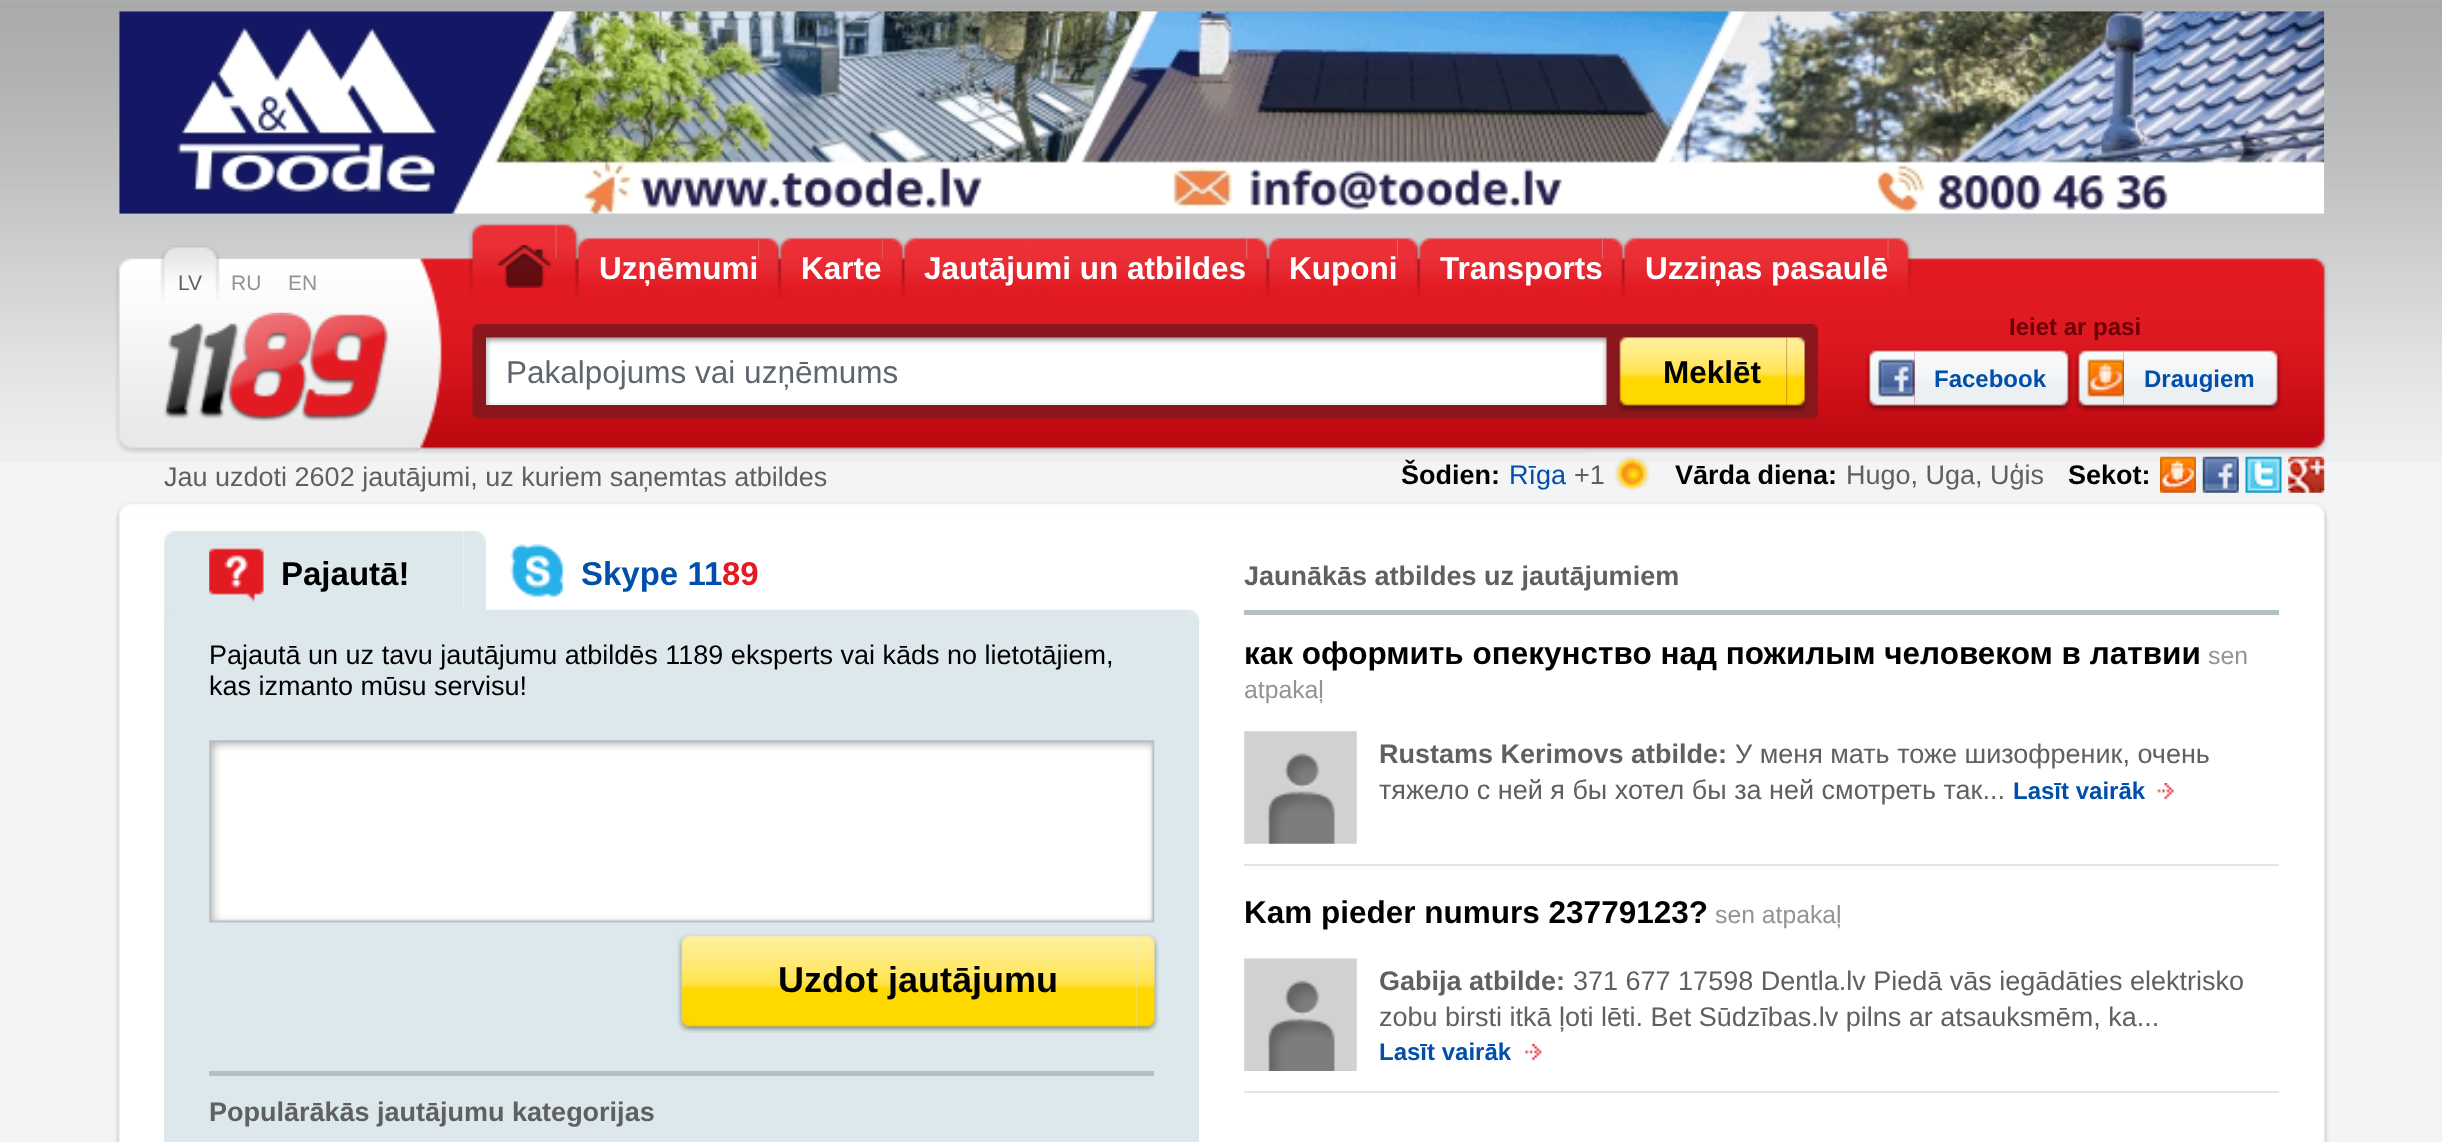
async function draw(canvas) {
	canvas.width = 2442;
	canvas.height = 1142;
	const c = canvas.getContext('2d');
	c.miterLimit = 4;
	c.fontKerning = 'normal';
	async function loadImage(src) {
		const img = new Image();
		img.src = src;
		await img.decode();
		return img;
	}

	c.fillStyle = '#f3f4f5';
	c.fillRect(0, 0, 2442, 1142);
	c.drawImage(await loadImage('img1.png'), 0, 0, 2442, 462);
	c.drawImage(await loadImage('img2.png'), 119, 11, 2206, 203);
	c.drawImage(await loadImage('img3.png'), 115, 257, 2213, 197);
	c.drawImage(await loadImage('img4.png'), 160, 245, 60, 55);
	c.font = '21px Liberation Sans';
	c.fillStyle = '#606060';
	c.fillText('LV', 178, 290);
	c.fillStyle = '#949393';
	c.fillText('RU', 231, 290);
	c.fillText('EN', 288, 290);
	c.drawImage(await loadImage('img5.png'), 555, 223, 25, 76);
	c.drawImage(await loadImage('img6.png'), 468, 223, 88, 76);
	c.drawImage(await loadImage('img7.png'), 497, 245, 55, 43);
	c.drawImage(await loadImage('img8.png'), 757, 236, 26, 64);
	c.drawImage(await loadImage('img9.png'), 574, 236, 185, 62);
	c.font = 'bold 31.5px Liberation Sans';
	c.fillStyle = '#fff';
	c.fillText('Uzņēmumi', 599, 279);
	c.drawImage(await loadImage('img10.png'), 881, 236, 26, 63);
	c.drawImage(await loadImage('img11.png'), 776, 236, 106, 63);
	c.fillText('Karte', 801, 279);
	c.drawImage(await loadImage('img12.png'), 1246, 236, 25, 63);
	c.drawImage(await loadImage('img13.png'), 900, 236, 347, 63);
	c.fillText('Jautājumi un atbildes', 924, 279);
	c.drawImage(await loadImage('img14.png'), 1396, 236, 26, 64);
	c.drawImage(await loadImage('img15.png'), 1265, 236, 133, 63);
	c.fillText('Kuponi', 1289, 279);
	c.drawImage(await loadImage('img16.png'), 1601, 236, 26, 63);
	c.drawImage(await loadImage('img17.png'), 1415, 236, 187, 63);
	c.fillText('Transports', 1440, 279);
	c.drawImage(await loadImage('img18.png'), 1887, 236, 25, 63);
	c.drawImage(await loadImage('img19.png'), 1620, 236, 268, 63);
	c.fillText('Uzziņas pasaulē', 1645, 279);
	c.drawImage(await loadImage('img20.png'), 164, 312, 225, 109);
	c.drawImage(await loadImage('img21.png'), 472, 324, 1346, 95);
	c.drawImage(await loadImage('img22.png'), 486, 337, 1121, 68);
	c.font = '31.5px Liberation Sans';
	c.fillStyle = '#5f656e';
	c.fillText('Pakalpojums vai uzņēmums', 506, 383);
	c.drawImage(await loadImage('img23.png'), 1786, 337, 21, 75);
	c.drawImage(await loadImage('img24.png'), 1617, 337, 170, 75);
	c.font = 'bold 31.5px Liberation Sans';
	c.fillStyle = '#000';
	c.fillText('Meklēt', 1663, 383);
	c.font = 'bold 24px Liberation Sans';
	c.fillStyle = '#6c0005';
	c.fillText('Ieiet ar pasi', 2009, 335);
	c.drawImage(await loadImage('img25.png'), 1865, 349, 51, 63);
	c.drawImage(await loadImage('img26.png'), 1914, 349, 158, 63);
	c.fillStyle = '#0050ab';
	c.fillText('Facebook', 1934, 387);
	c.drawImage(await loadImage('img27.png'), 2074, 349, 51, 63);
	c.drawImage(await loadImage('img28.png'), 2124, 349, 158, 63);
	c.fillText('Draugiem', 2144, 387);
	c.font = '27px Liberation Sans';
	c.fillStyle = '#606060';
	c.fillText('Jau uzdoti 2602 jautājumi, uz kuriem saņemtas atbildes', 164, 486);
	c.font = 'bold 27px Liberation Sans';
	c.fillStyle = '#000';
	c.fillText('Šodien:', 1401, 484);
	c.font = '27px Liberation Sans';
	c.fillStyle = '#0050ab';
	c.fillText('Rīga', 1509, 484);
	c.fillStyle = '#606060';
	c.fillText('+1', 1574, 484);
	c.drawImage(await loadImage('img29.png'), 1613, 456, 37, 35);
	c.font = 'bold 27px Liberation Sans';
	c.fillStyle = '#000';
	c.fillText('Vārda diena:', 1675, 484);
	c.font = '27px Liberation Sans';
	c.fillStyle = '#606060';
	c.fillText('Hugo, Uga, Uģis', 1846, 484);
	c.font = 'bold 27px Liberation Sans';
	c.fillStyle = '#000';
	c.fillText('Sekot:', 2068, 484);
	c.drawImage(await loadImage('img30.png'), 2160, 456, 36, 37);
	c.drawImage(await loadImage('img31.png'), 2202, 456, 37, 37);
	c.drawImage(await loadImage('img32.png'), 2245, 456, 37, 37);
	c.drawImage(await loadImage('img33.png'), 2288, 456, 37, 37);
	c.drawImage(await loadImage('img34.png'), 116, 502, 2211, 13);
	c.drawImage(await loadImage('img35.png'), 115, 515, 2214, 627);
	c.drawImage(await loadImage('img36.png'), 463, 531, 23, 79);
	c.drawImage(await loadImage('img37.png'), 164, 531, 300, 92);
	c.drawImage(await loadImage('img38.png'), 209, 548, 55, 54);
	c.font = 'bold 33px Liberation Sans';
	c.fillText('Pajautā!', 281, 585);
	c.drawImage(await loadImage('img39.png'), 510, 544, 55, 53);
	c.fillStyle = '#0050ab';
	c.fillText('Skype 11', 581, 585);
	c.fillStyle = '#e21b23';
	c.fillText('89', 722, 585);
	c.drawImage(await loadImage('img40.png'), 164, 609, 1036, 15);
	c.fillStyle = '#dce8eb';
	c.fillRect(164, 623, 1035, 519);
	c.font = '27px Liberation Sans';
	c.fillStyle = '#000';
	c.fillText('Pajautā un uz tavu jautājumu atbildēs 1189 eksperts vai kāds no lietotājiem,', 209, 664);
	c.fillText('kas izmanto mūsu servisu!', 209, 695);
	c.drawImage(await loadImage('img41.png'), 209, 740, 946, 183);
	c.drawImage(await loadImage('img42.png'), 1135, 934, 24, 99);
	c.drawImage(await loadImage('img43.png'), 677, 934, 460, 99);
	c.font = 'bold 36px Liberation Sans';
	c.fillText('Uzdot jautājumu', 778, 992);
	c.fillStyle = '#b1c1c1';
	c.fillRect(209, 1071, 945, 5);
	c.font = 'bold 27px Liberation Sans';
	c.fillStyle = '#606060';
	c.fillText('Populārākās jautājumu kategorijas', 209, 1121);
	c.fillStyle = '#b1c1c1';
	c.fillRect(1244, 610, 1035, 5);
	c.fillStyle = '#606060';
	c.fillText('Jaunākās atbildes uz jautājumiem', 1244, 585);
	c.fillStyle = '#e1e6e9';
	c.fillRect(1244, 864, 1035, 2);
	c.font = 'bold 31.5px Liberation Sans';
	c.fillStyle = '#000';
	c.fillText('как оформить опекунство над пожилым человеком в латвии', 1244, 664);
	c.font = '24.75px Liberation Sans';
	c.fillStyle = '#949393';
	c.fillText('sen', 2208, 664);
	c.fillText('atpakaļ', 1244, 698);
	c.drawImage(await loadImage('img44.png'), 1244, 731, 113, 113);
	c.font = 'bold 27px Liberation Sans';
	c.fillStyle = '#606060';
	c.fillText('Rustams Kerimovs atbilde:', 1379, 763);
	c.font = '27px Liberation Sans';
	c.fillText('У меня мать тоже шизофреник, очень', 1735, 763);
	c.fillText('тяжело с ней я бы хотел бы за ней смотреть так...', 1379, 799);
	c.drawImage(await loadImage('img45.png'), 2157, 783, 17, 17);
	c.font = 'bold 24px Liberation Sans';
	c.fillStyle = '#0050ab';
	c.fillText('Lasīt vairāk', 2013, 799);
	c.fillStyle = '#e1e6e9';
	c.fillRect(1244, 1091, 1035, 2);
	c.font = 'bold 31.5px Liberation Sans';
	c.fillStyle = '#000';
	c.fillText('Kam pieder numurs 23779123?', 1244, 923);
	c.font = '24.75px Liberation Sans';
	c.fillStyle = '#949393';
	c.fillText('sen atpakaļ', 1715, 923);
	c.drawImage(await loadImage('img46.png'), 1244, 958, 113, 113);
	c.font = 'bold 27px Liberation Sans';
	c.fillStyle = '#606060';
	c.fillText('Gabija atbilde:', 1379, 990);
	c.font = '27px Liberation Sans';
	c.fillText('371 677 17598 Dentla.lv Piedā vās iegādāties elektrisko', 1573, 990);
	c.fillText('zobu birsti itkā ļoti lēti. Bet Sūdzības.lv pilns ar atsauksmēm, ka...', 1379, 1026);
	c.drawImage(await loadImage('img47.png'), 1524, 1044, 18, 17);
	c.font = 'bold 24px Liberation Sans';
	c.fillStyle = '#0050ab';
	c.fillText('Lasīt vairāk', 1379, 1060);
}

draw(document.querySelector('canvas'));
